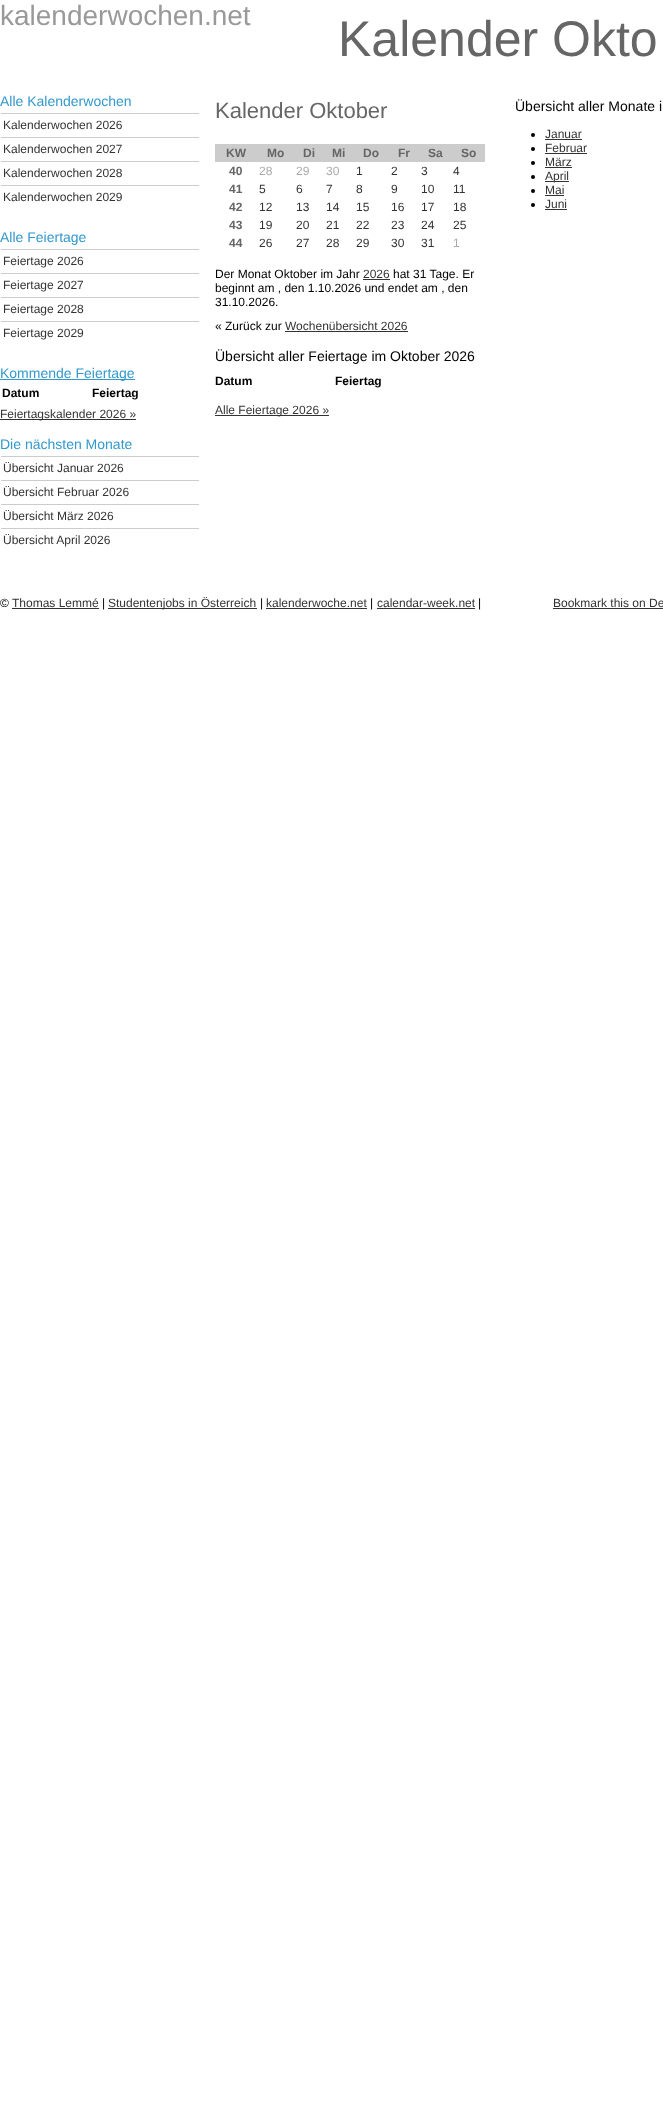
async function draw(canvas) {
	canvas.width = 663;
	canvas.height = 2126;
	const c = canvas.getContext('2d');
	c.miterLimit = 4;
	c.fontKerning = 'normal';

	c.fillStyle = '#fff';
	c.fillRect(0, 0, 663, 2126);
	c.font = '28px Liberation Sans';
	c.fillStyle = '#999';
	c.fillText('kalenderwochen.net', 0, 25);
	c.font = '50px Liberation Sans';
	c.fillStyle = '#666';
	c.fillText('Kalender Okto', 338, 56);
	c.font = '14px Liberation Sans';
	c.fillStyle = '#39c';
	c.fillText('Alle Kalenderwochen', 0, 106);
	c.fillStyle = '#ccc';
	c.fillRect(1, 113, 198, 1);
	c.font = '12px Liberation Sans';
	c.fillStyle = '#333';
	c.fillText('Kalenderwochen 2026', 3, 129);
	c.fillStyle = '#ccc';
	c.fillRect(1, 137, 198, 1);
	c.fillStyle = '#333';
	c.fillText('Kalenderwochen 2027', 3, 153);
	c.fillStyle = '#ccc';
	c.fillRect(1, 161, 198, 1);
	c.fillStyle = '#333';
	c.fillText('Kalenderwochen 2028', 3, 177);
	c.fillStyle = '#ccc';
	c.fillRect(1, 185, 198, 1);
	c.fillStyle = '#333';
	c.fillText('Kalenderwochen 2029', 3, 201);
	c.font = '14px Liberation Sans';
	c.fillStyle = '#39c';
	c.fillText('Alle Feiertage', 0, 242);
	c.fillStyle = '#ccc';
	c.fillRect(1, 249, 198, 1);
	c.font = '12px Liberation Sans';
	c.fillStyle = '#333';
	c.fillText('Feiertage 2026', 3, 265);
	c.fillStyle = '#ccc';
	c.fillRect(1, 273, 198, 1);
	c.fillStyle = '#333';
	c.fillText('Feiertage 2027', 3, 289);
	c.fillStyle = '#ccc';
	c.fillRect(1, 297, 198, 1);
	c.fillStyle = '#333';
	c.fillText('Feiertage 2028', 3, 313);
	c.fillStyle = '#ccc';
	c.fillRect(1, 321, 198, 1);
	c.fillStyle = '#333';
	c.fillText('Feiertage 2029', 3, 337);
	c.fillStyle = '#39c';
	c.fillRect(0, 379, 135, 1);
	c.font = '14px Liberation Sans';
	c.fillText('Kommende Feiertage', 0, 378);
	c.font = 'bold 12px Liberation Sans';
	c.fillStyle = '#000';
	c.fillText('Datum', 2, 397);
	c.fillText('Feiertag', 92, 397);
	c.fillStyle = '#333';
	c.fillRect(0, 419, 136, 1);
	c.font = '12px Liberation Sans';
	c.fillText('Feiertagskalender 2026 »', 0, 418);
	c.font = '14px Liberation Sans';
	c.fillStyle = '#39c';
	c.fillText('Die nächsten Monate', 0, 449);
	c.fillStyle = '#ccc';
	c.fillRect(1, 456, 198, 1);
	c.font = '12px Liberation Sans';
	c.fillStyle = '#333';
	c.fillText('Übersicht Januar 2026', 3, 472);
	c.fillStyle = '#ccc';
	c.fillRect(1, 480, 198, 1);
	c.fillStyle = '#333';
	c.fillText('Übersicht Februar 2026', 3, 496);
	c.fillStyle = '#ccc';
	c.fillRect(1, 504, 198, 1);
	c.fillStyle = '#333';
	c.fillText('Übersicht März 2026', 3, 520);
	c.fillStyle = '#ccc';
	c.fillRect(1, 528, 198, 1);
	c.fillStyle = '#333';
	c.fillText('Übersicht April 2026', 3, 544);
	c.font = '22px Liberation Sans';
	c.fillStyle = '#666';
	c.fillText('Kalender Oktober', 215, 118);
	c.fillStyle = '#ccc';
	c.fillRect(215, 144, 270, 18);
	c.font = 'bold 12px Liberation Sans';
	c.fillStyle = '#666';
	for (const [text, x, y] of [
		['KW', 226, 157],
		['Mo', 267, 157],
		['Di', 303, 157],
		['Mi', 332, 157],
		['Do', 363, 157],
		['Fr', 398, 157],
		['Sa', 428, 157],
		['So', 461, 157],
		['40', 229, 175],
	]) {
		c.fillText(text, x, y);
	}
	c.font = '12px Liberation Sans';
	c.fillStyle = '#aaa';
	for (const [text, x, y] of [
		['28', 259, 175],
		['29', 296, 175],
		['30', 326, 175],
	]) {
		c.fillText(text, x, y);
	}
	c.fillStyle = '#333';
	for (const [text, x, y] of [
		['1', 356, 175],
		['2', 391, 175],
		['3', 421, 175],
		['4', 453, 175],
	]) {
		c.fillText(text, x, y);
	}
	c.font = 'bold 12px Liberation Sans';
	c.fillStyle = '#666';
	c.fillText('41', 229, 193);
	c.font = '12px Liberation Sans';
	c.fillStyle = '#333';
	for (const [text, x, y] of [
		['5', 259, 193],
		['6', 296, 193],
		['7', 326, 193],
		['8', 356, 193],
		['9', 391, 193],
		['10', 421, 193],
		['11', 453, 193],
	]) {
		c.fillText(text, x, y);
	}
	c.font = 'bold 12px Liberation Sans';
	c.fillStyle = '#666';
	c.fillText('42', 229, 211);
	c.font = '12px Liberation Sans';
	c.fillStyle = '#333';
	for (const [text, x, y] of [
		['12', 259, 211],
		['13', 296, 211],
		['14', 326, 211],
		['15', 356, 211],
		['16', 391, 211],
		['17', 421, 211],
		['18', 453, 211],
	]) {
		c.fillText(text, x, y);
	}
	c.font = 'bold 12px Liberation Sans';
	c.fillStyle = '#666';
	c.fillText('43', 229, 229);
	c.font = '12px Liberation Sans';
	c.fillStyle = '#333';
	for (const [text, x, y] of [
		['19', 259, 229],
		['20', 296, 229],
		['21', 326, 229],
		['22', 356, 229],
		['23', 391, 229],
		['24', 421, 229],
		['25', 453, 229],
	]) {
		c.fillText(text, x, y);
	}
	c.font = 'bold 12px Liberation Sans';
	c.fillStyle = '#666';
	c.fillText('44', 229, 247);
	c.font = '12px Liberation Sans';
	c.fillStyle = '#333';
	for (const [text, x, y] of [
		['26', 259, 247],
		['27', 296, 247],
		['28', 326, 247],
		['29', 356, 247],
		['30', 391, 247],
		['31', 421, 247],
	]) {
		c.fillText(text, x, y);
	}
	c.fillStyle = '#aaa';
	c.fillText('1', 453, 247);
	c.fillStyle = '#000';
	c.fillText('Der Monat Oktober im Jahr', 215, 278);
	c.fillStyle = '#333';
	c.fillText('2026', 363, 278);
	c.fillRect(363, 279, 27, 1);
	c.fillStyle = '#000';
	for (const [text, x, y] of [
		['hat 31 Tage. Er', 393, 278],
		['beginnt am , den 1.10.2026 und endet am , den', 215, 292],
		['31.10.2026.', 215, 306],
		['« Zurück zur', 215, 330],
	]) {
		c.fillText(text, x, y);
	}
	c.fillStyle = '#333';
	c.fillText('Wochenübersicht 2026', 285, 330);
	c.fillRect(285, 331, 123, 1);
	c.font = '14px Liberation Sans';
	c.fillStyle = '#000';
	c.fillText('Übersicht aller Feiertage im Oktober 2026', 215, 361);
	c.font = 'bold 12px Liberation Sans';
	c.fillText('Datum', 215, 385);
	c.fillText('Feiertag', 335, 385);
	c.fillStyle = '#333';
	c.fillRect(215, 415, 114, 1);
	c.font = '12px Liberation Sans';
	c.fillText('Alle Feiertage 2026 »', 215, 414);
	c.font = '14px Liberation Sans';
	c.fillStyle = '#000';
	c.fillText('Übersicht aller Monate i', 515, 111);
	c.beginPath();
	c.arc(533, 135, 2, 0, 2 * Math.PI);
	c.fill();
	c.font = '12px Liberation Sans';
	c.fillStyle = '#333';
	c.fillText('Januar', 545, 138);
	c.fillRect(545, 139, 37, 1);
	c.fillStyle = '#000';
	c.beginPath();
	c.arc(533, 149, 2, 0, 2 * Math.PI);
	c.fill();
	c.fillStyle = '#333';
	c.fillText('Februar', 545, 152);
	c.fillRect(545, 153, 42, 1);
	c.fillStyle = '#000';
	c.beginPath();
	c.arc(533, 163, 2, 0, 2 * Math.PI);
	c.fill();
	c.fillStyle = '#333';
	c.fillText('März', 545, 166);
	c.fillRect(545, 167, 27, 1);
	c.fillStyle = '#000';
	c.beginPath();
	c.arc(533, 177, 2, 0, 2 * Math.PI);
	c.fill();
	c.fillStyle = '#333';
	c.fillRect(545, 181, 24, 1);
	c.fillText('April', 545, 180);
	c.fillStyle = '#000';
	c.beginPath();
	c.arc(533, 191, 2, 0, 2 * Math.PI);
	c.fill();
	c.fillStyle = '#333';
	c.fillText('Mai', 545, 194);
	c.fillRect(545, 195, 19, 1);
	c.fillStyle = '#000';
	c.beginPath();
	c.arc(533, 205, 2, 0, 2 * Math.PI);
	c.fill();
	c.fillStyle = '#333';
	c.fillText('Juni', 545, 208);
	c.fillRect(545, 209, 22, 1);
	c.fillStyle = '#000';
	c.fillText('©', 0, 607);
	c.fillStyle = '#333';
	c.fillText('Thomas Lemmé', 12, 607);
	c.fillRect(12, 608, 87, 1);
	c.fillStyle = '#000';
	c.fillText('|', 102, 607);
	c.fillStyle = '#333';
	c.fillRect(108, 608, 149, 1);
	c.fillText('Studentenjobs in Österreich', 108, 607);
	c.fillStyle = '#000';
	c.fillText('|', 260, 607);
	c.fillStyle = '#333';
	c.fillText('kalenderwoche.net', 266, 607);
	c.fillRect(266, 608, 101, 1);
	c.fillStyle = '#000';
	c.fillText('|', 370, 607);
	c.fillStyle = '#333';
	c.fillText('calendar-week.net', 377, 607);
	c.fillRect(377, 608, 98, 1);
	c.fillStyle = '#000';
	c.fillText('|', 478, 607);
	c.fillStyle = '#333';
	c.fillText('Bookmark this on De', 553, 607);
	c.fillRect(553, 608, 110, 1);
}

draw(document.querySelector('canvas'));
